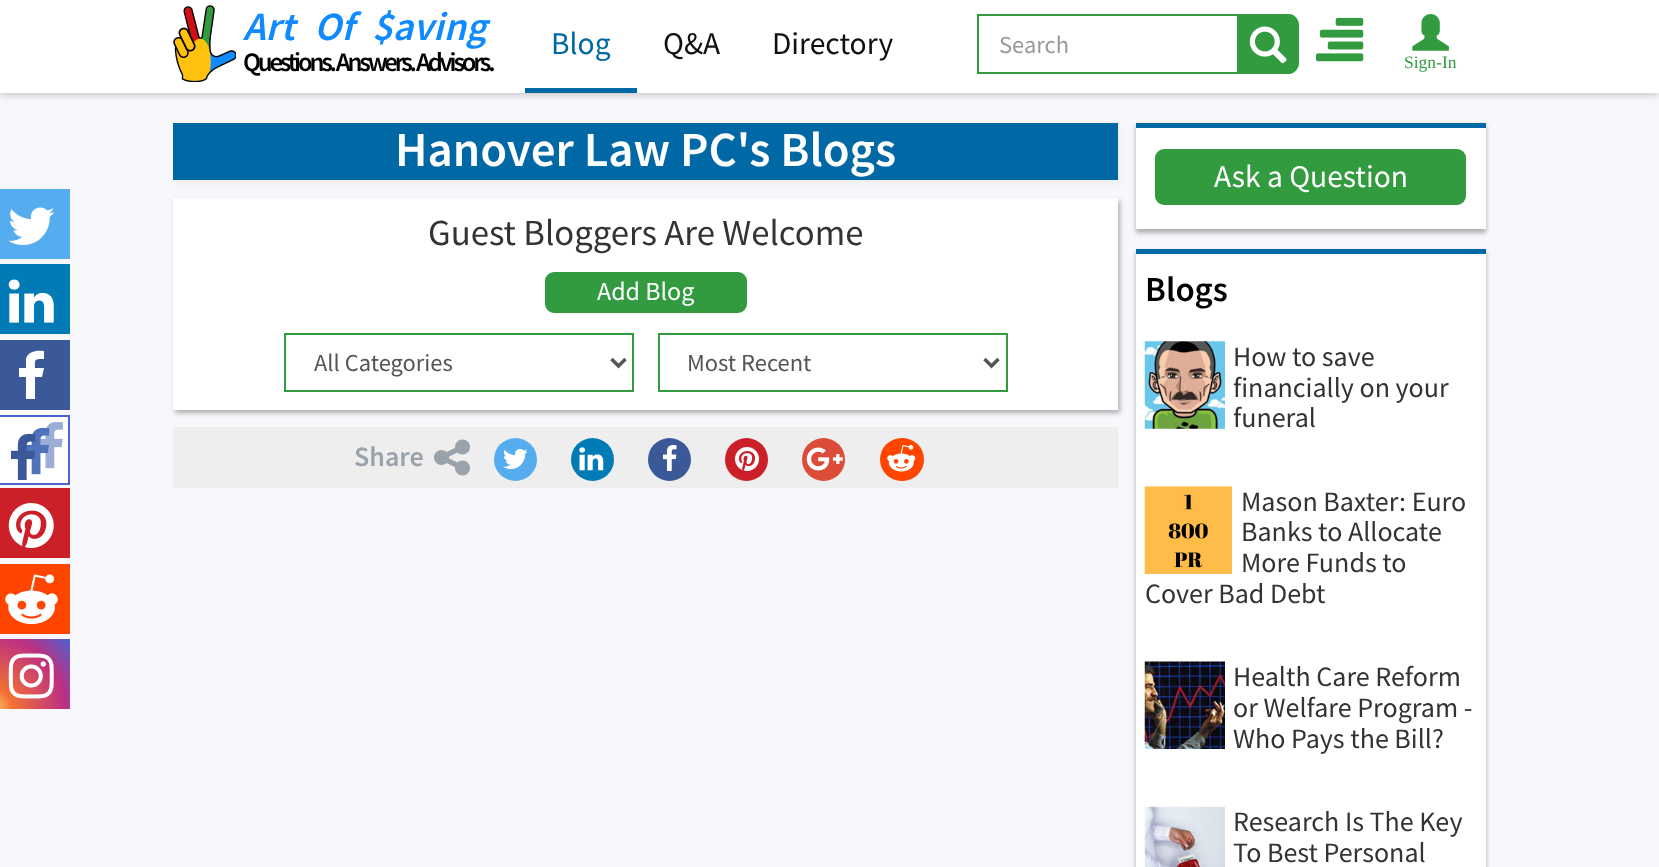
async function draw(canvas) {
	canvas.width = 1659;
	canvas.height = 867;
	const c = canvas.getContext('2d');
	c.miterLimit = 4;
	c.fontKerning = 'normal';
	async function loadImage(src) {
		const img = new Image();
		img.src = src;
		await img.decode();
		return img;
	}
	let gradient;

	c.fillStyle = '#f8f8fc';
	c.fillRect(0, 0, 1659, 867);
	c.fillStyle = '#00000033';
	c.filter = 'blur(3.5px)';
	c.beginPath();
	c.rect(0, 2, 1659, 93);
	c.fill();
	c.filter = 'none';
	c.fillStyle = '#fff';
	c.fillRect(0, 0, 1659, 93);
	c.drawImage(await loadImage('img1.png'), 173, 5, 63, 77);
	c.font = 'italic 600 40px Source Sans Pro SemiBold';
	c.fillStyle = '#0f8aff';
	for (const [text, x, y] of [
		['Art', 243, 40],
		['Of', 314, 40],
		['$aving', 372, 40],
	]) {
		c.fillText(text, x, y);
	}
	c.letterSpacing = '-3.2px';
	c.font = '600 26.75px Source Sans Pro SemiBold';
	c.fillStyle = '#000';
	c.fillText('Questions. Answers. Advisors.', 243, 71);
	c.fillStyle = '#0068a4';
	c.fillRect(525, 88, 112, 5);
	c.letterSpacing = '0px';
	c.font = '31.5px Source Sans Pro';
	c.fillText('Blog', 551, 54);
	c.fillStyle = '#101010';
	c.fillText('Q&A', 663, 54);
	c.fillText('Directory', 772, 54);
	c.strokeStyle = '#329b3f';
	c.lineWidth = 2;
	c.strokeRect(978, 15, 260, 58);
	c.font = '24.5px Source Sans Pro';
	c.fillStyle = '#999';
	c.fillText('Search', 999, 53);
	c.fillStyle = '#329b3f';
	c.beginPath();
	c.roundRect(1239, 14, 60, 60, [0, 11, 11, 0]);
	c.fill();
	c.beginPath();
	c.moveTo(1239, 14);
	c.lineTo(1288, 14);
	c.bezierCurveTo(1294, 14, 1298, 19, 1298, 24);
	c.lineTo(1298, 63);
	c.bezierCurveTo(1298, 69, 1294, 74, 1288, 74);
	c.lineTo(1239, 74);
	c.closePath();
	c.moveTo(1239, 16);
	c.lineTo(1288, 16);
	c.bezierCurveTo(1293, 16, 1297, 20, 1297, 24);
	c.lineTo(1297, 63);
	c.bezierCurveTo(1297, 68, 1293, 72, 1288, 72);
	c.lineTo(1239, 72);
	c.closePath();
	c.fill('evenodd');
	c.drawImage(await loadImage('img2.png'), 1249, 26, 38, 38);
	c.drawImage(await loadImage('img3.png'), 1316, 17, 48, 45);
	c.drawImage(await loadImage('img4.png'), 1412, 14, 37, 37);
	c.font = '17.5px Liberation Serif';
	c.fillText('Sign-In', 1404, 68);
	c.fillStyle = '#55acee';
	c.fillRect(0, 189, 70, 70);
	c.drawImage(await loadImage('img5.png'), 8, 207, 47, 38);
	c.fillStyle = '#007bb5';
	c.fillRect(0, 264, 70, 70);
	c.drawImage(await loadImage('img6.png'), 8, 279, 46, 44);
	c.fillStyle = '#3b5998';
	c.fillRect(0, 340, 70, 70);
	c.fillStyle = '#fff';
	c.beginPath();
	c.moveTo(44, 351);
	c.lineTo(44, 359);
	c.bezierCurveTo(34, 359, 35, 359, 35, 368);
	c.lineTo(44, 368);
	c.lineTo(42, 377);
	c.lineTo(35, 377);
	c.lineTo(35, 399);
	c.lineTo(26, 399);
	c.lineTo(26, 377);
	c.lineTo(19, 377);
	c.lineTo(19, 368);
	c.lineTo(26, 368);
	c.lineTo(26, 359);
	c.bezierCurveTo(28, 351, 37, 350, 44, 351);
	c.closePath();
	c.fill();
	c.fillRect(0, 417, 68, 66);
	c.drawImage(await loadImage('img7.png'), 11, 422, 52, 58);
	c.strokeStyle = '#4c63d2';
	c.strokeRect(-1, 416, 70, 68);
	c.fillStyle = '#cb2027';
	c.fillRect(0, 488, 70, 70);
	c.drawImage(await loadImage('img8.png'), 8, 503, 46, 45);
	c.fillStyle = '#ff4500';
	c.fillRect(0, 564, 70, 70);
	c.drawImage(await loadImage('img9.png'), 5, 574, 53, 51);
	gradient = c.createRadialGradient(-9, 709, 0, -9, 709, 105);
	gradient.addColorStop(0, '#fed576');
	gradient.addColorStop(0.2, '#f47133');
	gradient.addColorStop(0.7, '#bc3081');
	gradient.addColorStop(1, '#4c63d2');
	c.fillStyle = gradient;
	c.fillRect(0, 639, 70, 70);
	c.drawImage(await loadImage('img10.png'), 8, 653, 46, 46);
	c.fillStyle = '#eee';
	c.filter = 'blur(2.5px)';
	c.beginPath();
	c.rect(175, 126, 945, 58);
	c.fill();
	c.filter = 'none';
	c.fillStyle = '#0068a4';
	c.fillRect(173, 123, 945, 57);
	c.font = '600 49px Source Sans Pro SemiBold';
	c.fillStyle = '#fff';
	c.fillText('Hanover Law PC\'s Blogs', 395, 166);
	c.fillStyle = '#0000004d';
	c.filter = 'blur(2.5px)';
	c.beginPath();
	c.rect(175, 201, 945, 212);
	c.fill();
	c.filter = 'none';
	c.fillStyle = '#fff';
	c.fillRect(173, 198, 945, 212);
	c.font = '36.75px Source Sans Pro';
	c.fillStyle = '#333';
	c.fillText('Guest Bloggers Are Welcome', 428, 245);
	c.fillStyle = '#329b3f';
	c.beginPath();
	c.roundRect(544, 271, 204, 43, 10);
	c.fill();
	c.strokeStyle = '#fff';
	c.stroke();
	c.font = '26px Source Sans Pro';
	c.fillStyle = '#fff';
	c.fillText('Add Blog', 597, 300);
	c.strokeStyle = '#329b3f';
	c.strokeRect(285, 334, 348, 57);
	c.beginPath();
	c.moveTo(611.5, 359);
	c.lineTo(618.5, 366);
	c.lineTo(625.5, 359);
	c.strokeStyle = '#555';
	c.lineWidth = 3.5;
	c.stroke();
	c.font = '24.5px Source Sans Pro';
	c.fillStyle = '#555';
	c.fillText('All Categories', 314, 371);
	c.strokeStyle = '#329b3f';
	c.lineWidth = 2;
	c.strokeRect(659, 334, 348, 57);
	c.beginPath();
	c.moveTo(984.5, 359);
	c.lineTo(991.5, 366);
	c.lineTo(998.5, 359);
	c.strokeStyle = '#555';
	c.lineWidth = 3.5;
	c.stroke();
	c.fillText('Most Recent', 687, 371);
	c.fillStyle = '#eee';
	c.fillRect(173, 427, 945, 61);
	c.font = '600 28px Source Sans Pro SemiBold';
	c.fillStyle = '#9aa2ab';
	c.fillText('Share', 354, 466);
	c.drawImage(await loadImage('img11.png'), 434, 439, 36, 37);
	c.fillStyle = '#55acee';
	c.beginPath();
	c.arc(515.5, 459.5, 21.5, 0, 2 * Math.PI);
	c.fill();
	c.drawImage(await loadImage('img12.png'), 503, 449, 25, 20);
	c.fillStyle = '#007bb5';
	c.beginPath();
	c.arc(592.5, 459.5, 21.5, 0, 2 * Math.PI);
	c.fill();
	c.drawImage(await loadImage('img13.png'), 579, 447, 25, 24);
	c.fillStyle = '#3b5998';
	c.beginPath();
	c.arc(669.5, 459.5, 21.5, 0, 2 * Math.PI);
	c.fill();
	c.drawImage(await loadImage('img14.png'), 663, 445, 14, 26);
	c.fillStyle = '#cb2027';
	c.beginPath();
	c.arc(746.5, 459.5, 21.5, 0, 2 * Math.PI);
	c.fill();
	c.drawImage(await loadImage('img15.png'), 735, 447, 24, 24);
	c.fillStyle = '#dd4b39';
	c.beginPath();
	c.arc(823.5, 459.5, 21.5, 0, 2 * Math.PI);
	c.fill();
	c.drawImage(await loadImage('img16.png'), 806, 447, 37, 24);
	c.fillStyle = '#ff4500';
	c.beginPath();
	c.roundRect(880, 438, 44, 43, 21.5);
	c.fill();
	c.drawImage(await loadImage('img17.png'), 887, 445, 29, 27);
	c.fillStyle = '#0000004d';
	c.filter = 'blur(2.5px)';
	c.beginPath();
	c.rect(1136, 126, 350, 107);
	c.fill();
	c.filter = 'none';
	c.fillStyle = '#fff';
	c.fillRect(1136, 128, 350, 101);
	c.fillStyle = '#0068a4';
	c.fillRect(1136, 123, 350, 5);
	c.fillStyle = '#329b3f';
	c.beginPath();
	c.roundRect(1154, 148, 313, 58, 10);
	c.fill();
	c.strokeStyle = '#fff';
	c.lineWidth = 2;
	c.stroke();
	c.font = '31.5px Source Sans Pro';
	c.fillStyle = '#fff';
	c.fillText('Ask a Question', 1214, 187);
	c.fillStyle = '#0000004d';
	c.filter = 'blur(2.5px)';
	c.beginPath();
	c.rect(1136, 252, 350, 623);
	c.fill();
	c.filter = 'none';
	c.fillStyle = '#fff';
	c.fillRect(1136, 254, 350, 613);
	c.fillStyle = '#0068a4';
	c.fillRect(1136, 249, 350, 5);
	c.font = '600 35px Source Sans Pro SemiBold';
	c.fillStyle = '#000';
	c.fillText('Blogs', 1145, 301);
	c.drawImage(await loadImage('img18.png'), 1144, 341, 81, 88);
	c.font = '28px Source Sans Pro';
	c.fillStyle = '#333';
	for (const [text, x, y] of [
		['How to save', 1233, 366],
		['financially on your', 1233, 397],
		['funeral', 1233, 427],
	]) {
		c.fillText(text, x, y);
	}
	c.drawImage(await loadImage('img19.png'), 1144, 486, 88, 88);
	for (const [text, x, y] of [
		['Mason Baxter: Euro', 1241, 511],
		['Banks to Allocate', 1241, 541],
		['More Funds to', 1241, 572],
		['Cover Bad Debt', 1145, 603],
	]) {
		c.fillText(text, x, y);
	}
	c.drawImage(await loadImage('img20.png'), 1144, 661, 81, 88);
	for (const [text, x, y] of [
		['Health Care Reform', 1233, 686],
		['or Welfare Program -', 1233, 717],
		['Who Pays the Bill?', 1233, 748],
	]) {
		c.fillText(text, x, y);
	}
	c.drawImage(await loadImage('img21.png'), 1144, 806, 81, 61);
	c.fillText('Research Is The Key', 1233, 831);
	c.fillText('To Best Personal', 1233, 862);
}

draw(document.querySelector('canvas'));
